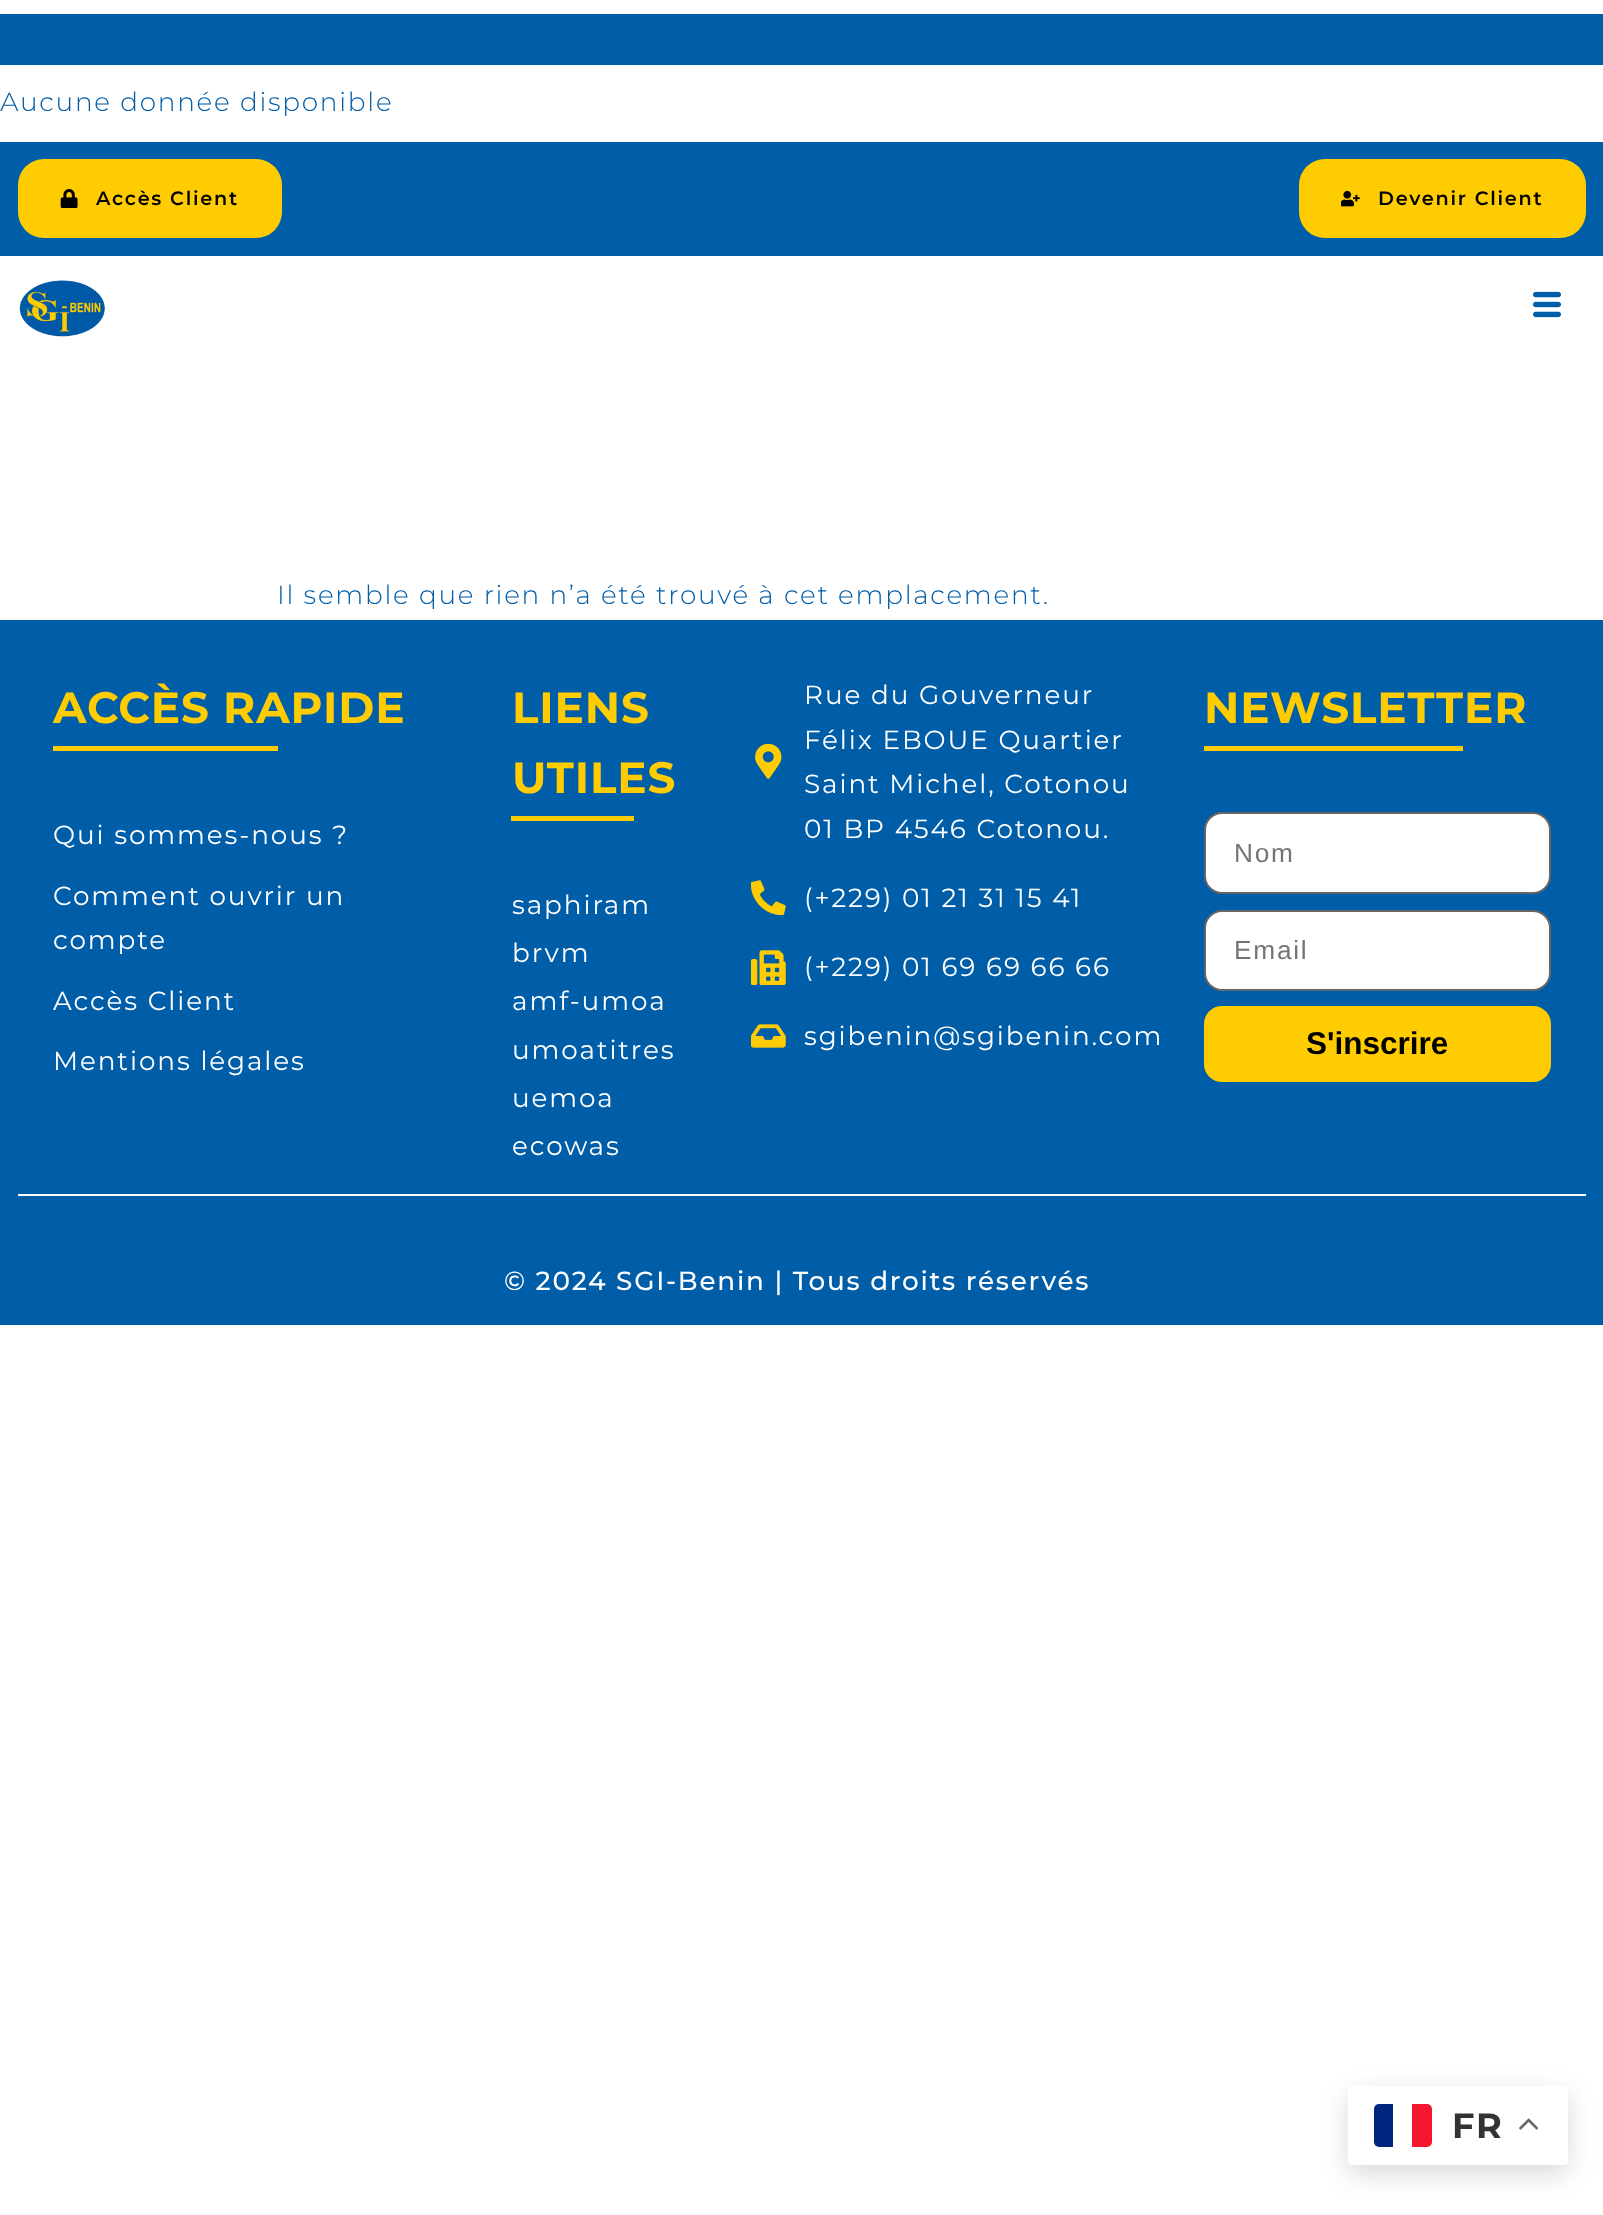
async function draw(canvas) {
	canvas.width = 1603;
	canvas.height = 2215;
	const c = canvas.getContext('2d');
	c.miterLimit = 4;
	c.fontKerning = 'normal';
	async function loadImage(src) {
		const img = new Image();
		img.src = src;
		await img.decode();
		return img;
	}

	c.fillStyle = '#fff';
	c.fillRect(0, 0, 1603, 2215);
	c.fillStyle = '#005da8';
	c.fillRect(0, 14, 1603, 51);
	c.letterSpacing = '1.75px';
	c.font = '300 26.25px Montserrat';
	c.fillText('Aucune donnée disponible', 0, 111);
	c.fillRect(0, 142, 1603, 114);
	c.fillStyle = '#fecc00';
	c.beginPath();
	c.roundRect(18, 159, 264, 79, 26);
	c.fill();
	c.drawImage(await loadImage('img1.png'), 60, 189, 18, 19);
	c.font = '600 19.25px Montserrat';
	c.fillStyle = '#000';
	c.fillText('Accès Client', 96, 205);
	c.fillStyle = '#fecc00';
	c.beginPath();
	c.roundRect(1299, 159, 287, 79, 26);
	c.fill();
	c.drawImage(await loadImage('img2.png'), 1341, 190, 19, 17);
	c.fillStyle = '#000';
	c.fillText('Devenir Client', 1378, 205);
	c.drawImage(await loadImage('img3.png'), 19, 280, 86, 57);
	c.drawImage(await loadImage('img4.png'), 1533, 291, 28, 27);
	c.font = '300 26.25px Montserrat';
	c.fillStyle = '#005da8';
	c.fillText('Il semble que rien n’a été trouvé à cet emplacement.', 277, 604);
	c.fillRect(0, 620, 1603, 705);
	c.letterSpacing = '0.9px';
	c.font = 'bold 43.75px Montserrat';
	c.fillStyle = '#fecc00';
	c.fillText('ACCÈS RAPIDE', 53, 723);
	c.fillRect(53, 746, 225, 5);
	c.letterSpacing = '1.9px';
	c.font = '26.25px Montserrat';
	c.fillStyle = '#fff';
	for (const [text, x, y] of [
		['Qui sommes-nous ?', 53, 844],
		['Comment ouvrir un', 53, 905],
		['compte', 53, 949],
		['Accès Client', 53, 1010],
		['Mentions légales', 53, 1070],
	]) {
		c.fillText(text, x, y);
	}
	c.letterSpacing = '0.9px';
	c.font = 'bold 43.75px Montserrat';
	c.fillStyle = '#fecc00';
	c.fillText('LIENS', 512, 723);
	c.fillText('UTILES', 512, 793);
	c.fillRect(511, 816, 123, 5);
	c.letterSpacing = '1.9px';
	c.font = '26.25px Montserrat';
	c.fillStyle = '#fff';
	for (const [text, x, y] of [
		['saphiram', 512, 914],
		['brvm', 512, 962],
		['amf-umoa', 512, 1010],
		['umoatitres', 512, 1059],
		['uemoa', 512, 1107],
		['ecowas', 512, 1155],
	]) {
		c.fillText(text, x, y);
	}
	c.drawImage(await loadImage('img5.png'), 755, 744, 27, 35);
	for (const [text, x, y] of [
		['Rue du Gouverneur', 804, 704],
		['Félix EBOUE Quartier', 804, 749],
		['Saint Michel, Cotonou', 804, 793],
		['01 BP 4546 Cotonou.', 804, 838],
	]) {
		c.fillText(text, x, y);
	}
	c.drawImage(await loadImage('img6.png'), 751, 880, 35, 35);
	c.fillText('(+229) 01 21 31 15 41', 804, 907);
	c.drawImage(await loadImage('img7.png'), 751, 950, 35, 35);
	c.fillText('(+229) 01 69 69 66 66', 804, 976);
	c.drawImage(await loadImage('img8.png'), 751, 1024, 35, 24);
	c.fillText('sgibenin@sgibenin.com', 804, 1045);
	c.letterSpacing = '0.9px';
	c.font = 'bold 43.75px Montserrat';
	c.fillStyle = '#fecc00';
	c.fillText('NEWSLETTER', 1204, 723);
	c.fillRect(1204, 746, 259, 5);
	c.fillStyle = '#fff';
	c.beginPath();
	c.roundRect(1205, 813, 345, 80, 17);
	c.fill();
	c.strokeStyle = '#666';
	c.lineWidth = 2;
	c.stroke();
	c.letterSpacing = '1.75px';
	c.font = '26.25px Liberation Sans';
	c.fillStyle = '#757575';
	c.fillText('Nom', 1234, 862);
	c.fillStyle = '#fff';
	c.beginPath();
	c.roundRect(1205, 911, 345, 79, 17);
	c.fill();
	c.stroke();
	c.fillStyle = '#757575';
	c.fillText('Email', 1234, 959);
	c.fillStyle = '#fecc00';
	c.beginPath();
	c.roundRect(1204, 1006, 347, 76, 18);
	c.fill();
	c.letterSpacing = '0px';
	c.font = 'bold 31.5px Liberation Sans';
	c.fillStyle = '#000';
	c.fillText('S\'inscrire', 1306, 1054);
	c.fillStyle = '#fff';
	c.fillRect(18, 1194, 1568, 2);
	c.letterSpacing = '1.75px';
	c.font = '500 26.25px Montserrat';
	c.fillText('© 2024 SGI-Benin | Tous droits réservés', 504, 1290);
	c.fillStyle = '#00000026';
	c.filter = 'blur(13px)';
	c.beginPath();
	c.roundRect(1348, 2095, 220, 79, 4);
	c.fill();
	c.filter = 'none';
	c.fillStyle = '#fff';
	c.beginPath();
	c.roundRect(1348, 2086, 220, 79, 4);
	c.fill();
	c.fillStyle = '#00267f';
	c.beginPath();
	c.roundRect(1374, 2104, 19, 43, [5, 0, 0, 5]);
	c.fill();
	c.fillStyle = '#f31830';
	c.beginPath();
	c.roundRect(1412, 2104, 20, 43, [0, 5, 5, 0]);
	c.fill();
	c.font = 'bold 35px Montserrat';
	c.fillStyle = '#333';
	c.fillText('FR', 1452, 2138);
	c.drawImage(await loadImage('img9.png'), 1519, 2118, 19, 12);
}

draw(document.querySelector('canvas'));
